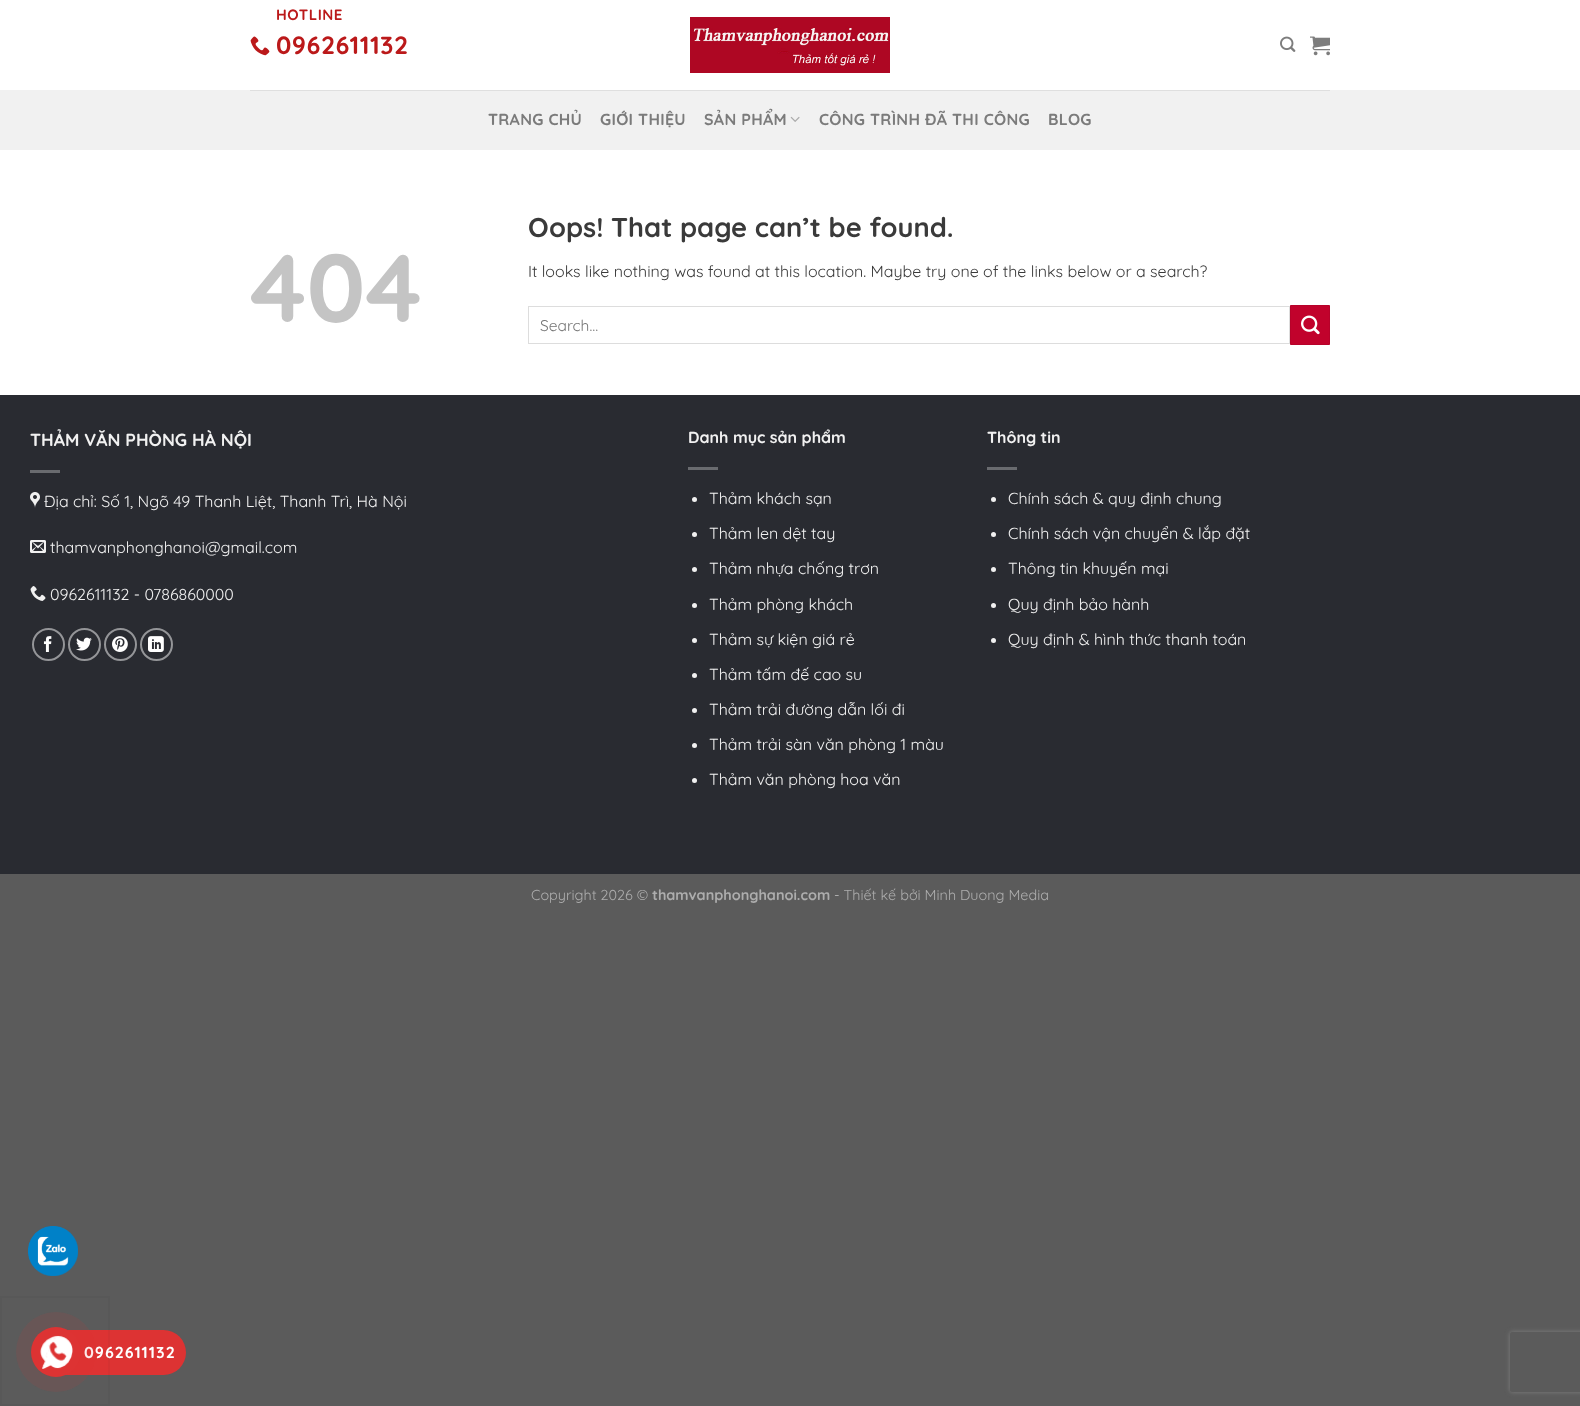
async function draw(canvas) {
	canvas.width = 1580;
	canvas.height = 1406;
	const c = canvas.getContext('2d');
	c.miterLimit = 4;
	c.fontKerning = 'normal';
	async function loadImage(src) {
		const img = new Image();
		img.src = src;
		await img.decode();
		return img;
	}

	c.fillStyle = '#5b5b5b';
	c.fillRect(0, 0, 1580, 1406);
	c.fillStyle = '#fff';
	c.fillRect(0, 0, 1580, 395);
	c.letterSpacing = '0.5px';
	c.font = 'bold 15px Quicksand';
	c.fillStyle = '#bb191a';
	c.fillText('HOTLINE', 276, 20);
	c.drawImage(await loadImage('img1.png'), 250, 36, 20, 20);
	c.font = 'bold 25px Quicksand';
	c.fillText('0962611132', 276, 54);
	c.drawImage(await loadImage('img2.png'), 690, 17, 200, 56);
	c.drawImage(await loadImage('img3.png'), 1280, 36, 16, 16);
	c.drawImage(await loadImage('img4.png'), 1310, 36, 20, 20);
	c.fillStyle = '#f1f1f1';
	c.fillRect(0, 90, 1580, 60);
	c.fillStyle = '#dfdfdf';
	c.fillRect(250, 90, 1080, 1);
	c.letterSpacing = '0.3px';
	c.font = 'bold 16px Quicksand';
	c.fillStyle = '#7b7b7b';
	for (const [text, x, y] of [
		['TRANG CHỦ', 488, 125],
		['GIỚI THIỆU', 600, 125],
		['SẢN PHẨM', 704, 125],
	]) {
		c.fillText(text, x, y);
	}
	c.drawImage(await loadImage('img5.png'), 790, 116, 10, 6);
	c.fillText('CÔNG TRÌNH ĐÃ THI CÔNG', 819, 125);
	c.fillText('BLOG', 1048, 125);
	c.letterSpacing = '0px';
	c.font = 'bold 96px Quicksand';
	c.fillStyle = '#c4c4c4';
	c.fillText('404', 250, 322);
	c.font = 'bold 27.25px Quicksand';
	c.fillStyle = '#3a3a3a';
	c.fillText('Oops! That page can’t be found.', 528, 237);
	c.font = '16px Quicksand';
	c.fillText('It looks like nothing was found at this location. Maybe try one of the links below or a search?', 528, 277);
	c.strokeStyle = '#ddd';
	c.strokeRect(528.5, 306.5, 761, 37);
	c.font = '15.5px Quicksand';
	c.fillStyle = '#757575';
	c.fillText('Search…', 540, 331);
	c.fillStyle = '#c1022c';
	c.beginPath();
	c.rect(1290.5, 305.5, 39, 39);
	c.fill();
	c.strokeStyle = '#b7022a';
	c.stroke();
	c.drawImage(await loadImage('img6.png'), 1301, 315, 19, 20);
	c.fillStyle = '#292b31';
	c.fillRect(0, 395, 1580, 479);
	c.font = 'bold 17.6px Quicksand';
	c.fillStyle = '#f1f1f1';
	c.fillText('THẢM VĂN PHÒNG HÀ NỘI', 30, 446);
	c.fillStyle = '#696b6f';
	c.fillRect(30, 470, 30, 3);
	c.drawImage(await loadImage('img7.png'), 30, 492, 10, 16);
	c.font = '16px Quicksand';
	c.fillStyle = '#f1f1f1';
	c.fillText('Địa chỉ: Số 1, Ngõ 49 Thanh Liệt, Thanh Trì, Hà Nội', 44, 507);
	c.drawImage(await loadImage('img8.png'), 30, 540, 16, 13);
	c.fillText('thamvanphonghanoi@gmail.com', 50, 553);
	c.drawImage(await loadImage('img9.png'), 30, 586, 16, 15);
	c.fillText('0962611132 - 0786860000', 50, 600);
	c.beginPath();
	c.arc(48.5, 644.5, 15.5, 0, 2 * Math.PI);
	c.strokeStyle = '#949598';
	c.lineWidth = 2;
	c.stroke();
	c.drawImage(await loadImage('img10.png'), 43, 636, 9, 16);
	c.beginPath();
	c.arc(84.5, 644.5, 15.5, 0, 2 * Math.PI);
	c.stroke();
	c.drawImage(await loadImage('img11.png'), 76, 637, 16, 14);
	c.beginPath();
	c.arc(120.5, 644.5, 15.5, 0, 2 * Math.PI);
	c.stroke();
	c.drawImage(await loadImage('img12.png'), 112, 636, 16, 16);
	c.beginPath();
	c.arc(156.5, 644.5, 15.5, 0, 2 * Math.PI);
	c.stroke();
	c.drawImage(await loadImage('img13.png'), 148, 636, 16, 16);
	c.font = 'bold 16px Quicksand';
	c.fillText('Danh mục sản phẩm', 688, 443);
	c.fillStyle = '#696b6f';
	c.fillRect(688, 467, 30, 3);
	c.fillStyle = '#f1f1f1';
	c.beginPath();
	c.arc(694.5, 499.5, 2.5, 0, 2 * Math.PI);
	c.fill();
	c.font = '16px Quicksand';
	c.fillText('Thảm khách sạn', 709, 504);
	c.beginPath();
	c.arc(694.5, 534.5, 2.5, 0, 2 * Math.PI);
	c.fill();
	c.fillText('Thảm len dệt tay', 709, 539);
	c.beginPath();
	c.arc(694.5, 569.5, 2.5, 0, 2 * Math.PI);
	c.fill();
	c.fillText('Thảm nhựa chống trơn', 709, 574);
	c.beginPath();
	c.arc(694.5, 605.5, 2.5, 0, 2 * Math.PI);
	c.fill();
	c.fillText('Thảm phòng khách', 709, 610);
	c.beginPath();
	c.arc(694.5, 640.5, 2.5, 0, 2 * Math.PI);
	c.fill();
	c.fillText('Thảm sự kiện giá rẻ', 709, 645);
	c.beginPath();
	c.arc(694.5, 675.5, 2.5, 0, 2 * Math.PI);
	c.fill();
	c.fillText('Thảm tấm đế cao su', 709, 680);
	c.beginPath();
	c.arc(694.5, 710.5, 2.5, 0, 2 * Math.PI);
	c.fill();
	c.fillText('Thảm trải đường dẫn lối đi', 709, 715);
	c.beginPath();
	c.arc(694.5, 745.5, 2.5, 0, 2 * Math.PI);
	c.fill();
	c.fillText('Thảm trải sàn văn phòng 1 màu', 709, 750);
	c.beginPath();
	c.arc(694.5, 780.5, 2.5, 0, 2 * Math.PI);
	c.fill();
	c.fillText('Thảm văn phòng hoa văn', 709, 785);
	c.font = 'bold 16px Quicksand';
	c.fillText('Thông tin', 987, 443);
	c.fillStyle = '#696b6f';
	c.fillRect(987, 467, 30, 3);
	c.fillStyle = '#f1f1f1';
	c.beginPath();
	c.arc(993.5, 499.5, 2.5, 0, 2 * Math.PI);
	c.fill();
	c.font = '16px Quicksand';
	c.fillText('Chính sách & quy định chung', 1008, 504);
	c.beginPath();
	c.arc(993.5, 534.5, 2.5, 0, 2 * Math.PI);
	c.fill();
	c.fillText('Chính sách vận chuyển & lắp đặt', 1008, 539);
	c.beginPath();
	c.arc(993.5, 569.5, 2.5, 0, 2 * Math.PI);
	c.fill();
	c.fillText('Thông tin khuyến mại', 1008, 574);
	c.beginPath();
	c.arc(993.5, 605.5, 2.5, 0, 2 * Math.PI);
	c.fill();
	c.fillText('Quy định bảo hành', 1008, 610);
	c.beginPath();
	c.arc(993.5, 640.5, 2.5, 0, 2 * Math.PI);
	c.fill();
	c.fillText('Quy định & hình thức thanh toán', 1008, 645);
	c.font = '14.4px Quicksand';
	c.fillStyle = '#adadad';
	c.fillText('Copyright 2026 ©', 531, 900);
	c.font = 'bold 14.4px Quicksand';
	c.fillText('thamvanphonghanoi.com', 652, 900);
	c.font = '14.4px Quicksand';
	c.fillText('- Thiết kế bởi Minh Duong Media', 834, 900);
	c.drawImage(await loadImage('img14.png'), 28, 1226, 50, 50);
	c.fillStyle = '#d33';
	c.beginPath();
	c.roundRect(42, 1330, 144, 45, 22.5);
	c.fill();
	c.letterSpacing = '1px';
	c.font = 'bold 16px Quicksand';
	c.fillStyle = '#fff';
	c.fillText('0962611132', 84, 1358);
	c.strokeStyle = '#1e1e1e0a';
	c.strokeRect(1, 1297, 108, 108);
	c.fillStyle = '#dd33331a';
	c.beginPath();
	c.arc(56, 1352, 40, 0, 2 * Math.PI);
	c.fill();
	c.fillStyle = '#d33';
	c.beginPath();
	c.arc(56, 1352, 25, 0, 2 * Math.PI);
	c.fill();
	c.drawImage(await loadImage('img15.png'), 40, 1335, 33, 34);
	c.save();
	c.beginPath();
	c.moveTo(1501, 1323);
	c.lineTo(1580, 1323);
	c.lineTo(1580, 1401);
	c.lineTo(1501, 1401);
	c.closePath();
	c.moveTo(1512, 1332);
	c.lineTo(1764, 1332);
	c.bezierCurveTo(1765, 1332, 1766, 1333, 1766, 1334);
	c.lineTo(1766, 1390);
	c.bezierCurveTo(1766, 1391, 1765, 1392, 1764, 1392);
	c.lineTo(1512, 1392);
	c.bezierCurveTo(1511, 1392, 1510, 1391, 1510, 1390);
	c.lineTo(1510, 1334);
	c.bezierCurveTo(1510, 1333, 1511, 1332, 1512, 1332);
	c.closePath();
	c.clip('evenodd');
	c.fillStyle = '#808080';
	c.filter = 'blur(2.5px)';
	c.beginPath();
	c.roundRect(1510, 1332, 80, 60, 2);
	c.fill();
	c.filter = 'none';
	c.restore();
}

draw(document.querySelector('canvas'));
